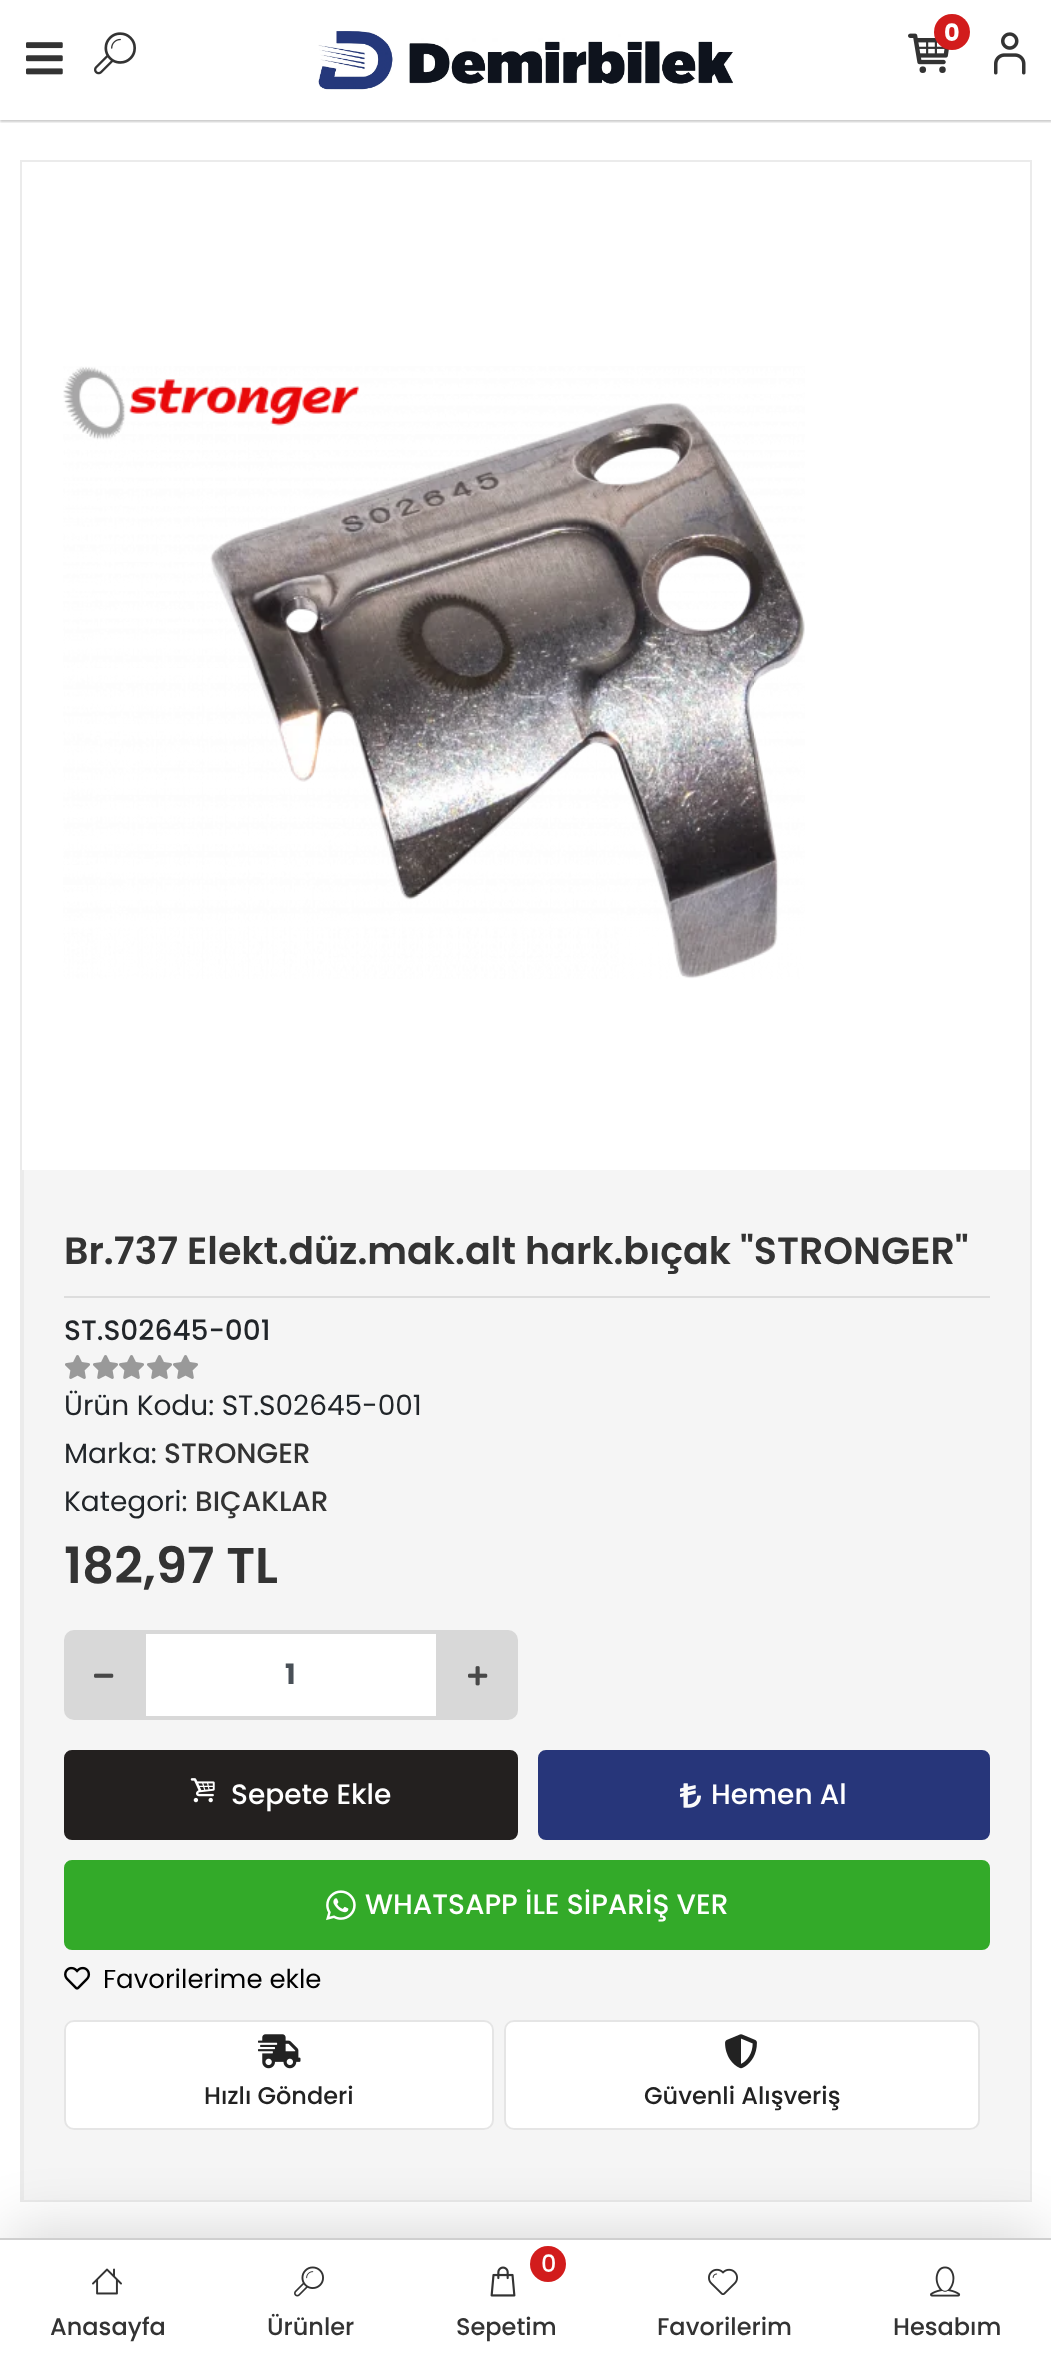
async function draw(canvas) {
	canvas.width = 1051;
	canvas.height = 2368;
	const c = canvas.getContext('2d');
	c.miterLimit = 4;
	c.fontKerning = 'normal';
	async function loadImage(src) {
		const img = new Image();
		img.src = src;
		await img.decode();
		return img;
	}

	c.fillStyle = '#fff';
	c.fillRect(0, 0, 1051, 2368);
	c.save();
	c.beginPath();
	c.rect(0, 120, 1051, 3);
	c.clip();
	c.fillStyle = '#00000033';
	c.filter = 'blur(1px)';
	c.beginPath();
	c.rect(0, 2, 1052, 120);
	c.fill();
	c.filter = 'none';
	c.restore();
	c.drawImage(await loadImage('img1.png'), 26, 42, 37, 33);
	c.drawImage(await loadImage('img2.png'), 94, 32, 42, 43);
	c.drawImage(await loadImage('img3.png'), 318, 31, 415, 59);
	c.drawImage(await loadImage('img4.png'), 908, 33, 41, 40);
	c.fillStyle = '#d21c1c';
	c.beginPath();
	c.arc(952, 32, 18, 0, 2 * Math.PI);
	c.fill();
	c.font = 'bold 24px Poppins';
	c.fillStyle = '#fff';
	c.fillText('0', 944, 41);
	c.drawImage(await loadImage('img5.png'), 994, 32, 32, 43);
	c.strokeStyle = '#ebebeb';
	c.lineWidth = 2;
	c.strokeRect(21, 161, 1010, 2040);
	c.drawImage(await loadImage('img6.png'), 63, 366, 742, 613);
	for (const [x, y, w, h, color] of [
		[24, 1170, 1006, 1030, '#f5f5f5'],
		[22, 1170, 2, 1030, '#ebebeb'],
		[64, 1296, 926, 2, '#ddd'],
	]) {
		c.fillStyle = color;
		c.fillRect(x, y, w, h);
	}
	c.font = '600 38px Poppins';
	c.fillStyle = '#333';
	c.fillText('Br.737 Elekt.düz.mak.alt hark.bıçak "STRONGER"', 64, 1264);
	c.font = '500 28px Poppins';
	c.fillStyle = '#212529';
	c.fillText('ST.S02645-001', 64, 1340);
	c.drawImage(await loadImage('img7.png'), 65, 1355, 25, 24);
	c.drawImage(await loadImage('img7.png'), 93, 1355, 25, 24);
	c.drawImage(await loadImage('img7.png'), 119, 1355, 25, 24);
	c.drawImage(await loadImage('img7.png'), 147, 1355, 25, 24);
	c.drawImage(await loadImage('img7.png'), 173, 1355, 25, 24);
	c.font = '28px Poppins';
	c.fillText('Ürün Kodu: ST.S02645-001', 64, 1415);
	c.fillText('Marka:', 64, 1463);
	c.font = '500 28px Poppins';
	c.fillStyle = '#333';
	c.fillText('STRONGER', 164, 1463);
	c.font = '28px Poppins';
	c.fillStyle = '#212529';
	c.fillText('Kategori:', 64, 1511);
	c.font = '500 28px Poppins';
	c.fillStyle = '#333';
	c.fillText('BIÇAKLAR', 195, 1511);
	c.font = '600 50px Poppins';
	c.fillText('182,97 TL', 64, 1583);
	c.fillStyle = '#d8d8d8';
	c.beginPath();
	c.roundRect(64, 1630, 80, 90, [10, 0, 0, 10]);
	c.fill();
	c.drawImage(await loadImage('img8.png'), 94, 1673, 20, 5);
	for (const [x, y, w, h, color] of [
		[146, 1634, 290, 82, '#fff'],
		[144, 1630, 294, 4, '#d8d8d8'],
		[436, 1630, 2, 90, '#d8d8d8'],
		[144, 1716, 294, 4, '#d8d8d8'],
		[144, 1630, 2, 90, '#d8d8d8'],
	]) {
		c.fillStyle = color;
		c.fillRect(x, y, w, h);
	}
	c.font = 'bold 28px Poppins';
	c.fillStyle = '#495057';
	c.fillText('1', 285, 1684);
	c.fillStyle = '#d8d8d8';
	c.beginPath();
	c.roundRect(438, 1630, 80, 90, [0, 10, 10, 0]);
	c.fill();
	c.drawImage(await loadImage('img9.png'), 468, 1666, 20, 20);
	c.fillStyle = '#23201f';
	c.beginPath();
	c.roundRect(65, 1751, 452, 88, 7);
	c.fill();
	c.strokeStyle = '#23201f';
	c.stroke();
	c.drawImage(await loadImage('img10.png'), 190, 1778, 25, 25);
	c.font = '500 28px Poppins';
	c.fillStyle = '#fff';
	c.fillText('Sepete Ekle', 231, 1804);
	c.fillStyle = '#27367a';
	c.beginPath();
	c.roundRect(539, 1751, 450, 88, 7);
	c.fill();
	c.strokeStyle = '#27367a';
	c.stroke();
	c.drawImage(await loadImage('img11.png'), 680, 1783, 21, 25);
	c.fillStyle = '#fff';
	c.fillText('Hemen Al', 711, 1804);
	c.fillStyle = '#33aa29';
	c.beginPath();
	c.roundRect(65, 1861, 924, 88, 7);
	c.fill();
	c.strokeStyle = '#33aa29';
	c.stroke();
	c.drawImage(await loadImage('img12.png'), 326, 1890, 30, 31);
	c.fillStyle = '#fff';
	c.fillText('WHATSAPP İLE SİPARİŞ VER', 365, 1914);
	c.drawImage(await loadImage('img13.png'), 64, 1966, 27, 24);
	c.font = '26px Poppins';
	c.fillStyle = '#000';
	c.fillText('Favorilerime ekle', 103, 1988);
	c.fillStyle = '#fff';
	c.beginPath();
	c.roundRect(64, 2020, 430, 110, 10);
	c.fill();
	c.beginPath();
	c.roundRect(65, 2021, 428, 108, 9);
	c.strokeStyle = '#0000001a';
	c.stroke();
	c.drawImage(await loadImage('img14.png'), 258, 2034, 43, 35);
	c.font = '500 24px Poppins';
	c.fillStyle = '#222';
	c.fillText('Hızlı Gönderi', 204, 2104);
	c.fillStyle = '#fff';
	c.beginPath();
	c.roundRect(504, 2020, 476, 110, 10);
	c.fill();
	c.beginPath();
	c.roundRect(505, 2021, 474, 108, 9);
	c.stroke();
	c.drawImage(await loadImage('img15.png'), 725, 2034, 32, 35);
	c.fillStyle = '#222';
	c.fillText('Güvenli Alışveriş', 644, 2104);
	c.fillStyle = '#00000026';
	c.filter = 'blur(30px)';
	c.beginPath();
	c.rect(10, 2228, 1032, 110);
	c.fill();
	c.filter = 'none';
	c.fillStyle = '#fff';
	c.fillRect(0, 2240, 1051, 128);
	c.fillStyle = '#cfcfcf';
	c.fillRect(0, 2238, 1051, 2);
	c.drawImage(await loadImage('img16.png'), 92, 2268, 30, 27);
	c.fillStyle = '#333';
	c.fillText('Anasayfa', 50, 2335);
	c.drawImage(await loadImage('img17.png'), 294, 2266, 30, 31);
	c.fillText('Ürünler', 267, 2335);
	c.fillStyle = '#d21c1c';
	c.beginPath();
	c.arc(548, 2264, 18, 0, 2 * Math.PI);
	c.fill();
	c.fillStyle = '#fff';
	c.fillText('0', 541, 2272);
	c.drawImage(await loadImage('img18.png'), 490, 2266, 26, 31);
	c.fillStyle = '#333';
	c.fillText('Sepetim', 456, 2335);
	c.drawImage(await loadImage('img19.png'), 708, 2268, 30, 27);
	c.fillText('Favorilerim', 657, 2335);
	c.drawImage(await loadImage('img20.png'), 930, 2266, 31, 31);
	c.fillText('Hesabım', 893, 2335);
}

draw(document.querySelector('canvas'));
